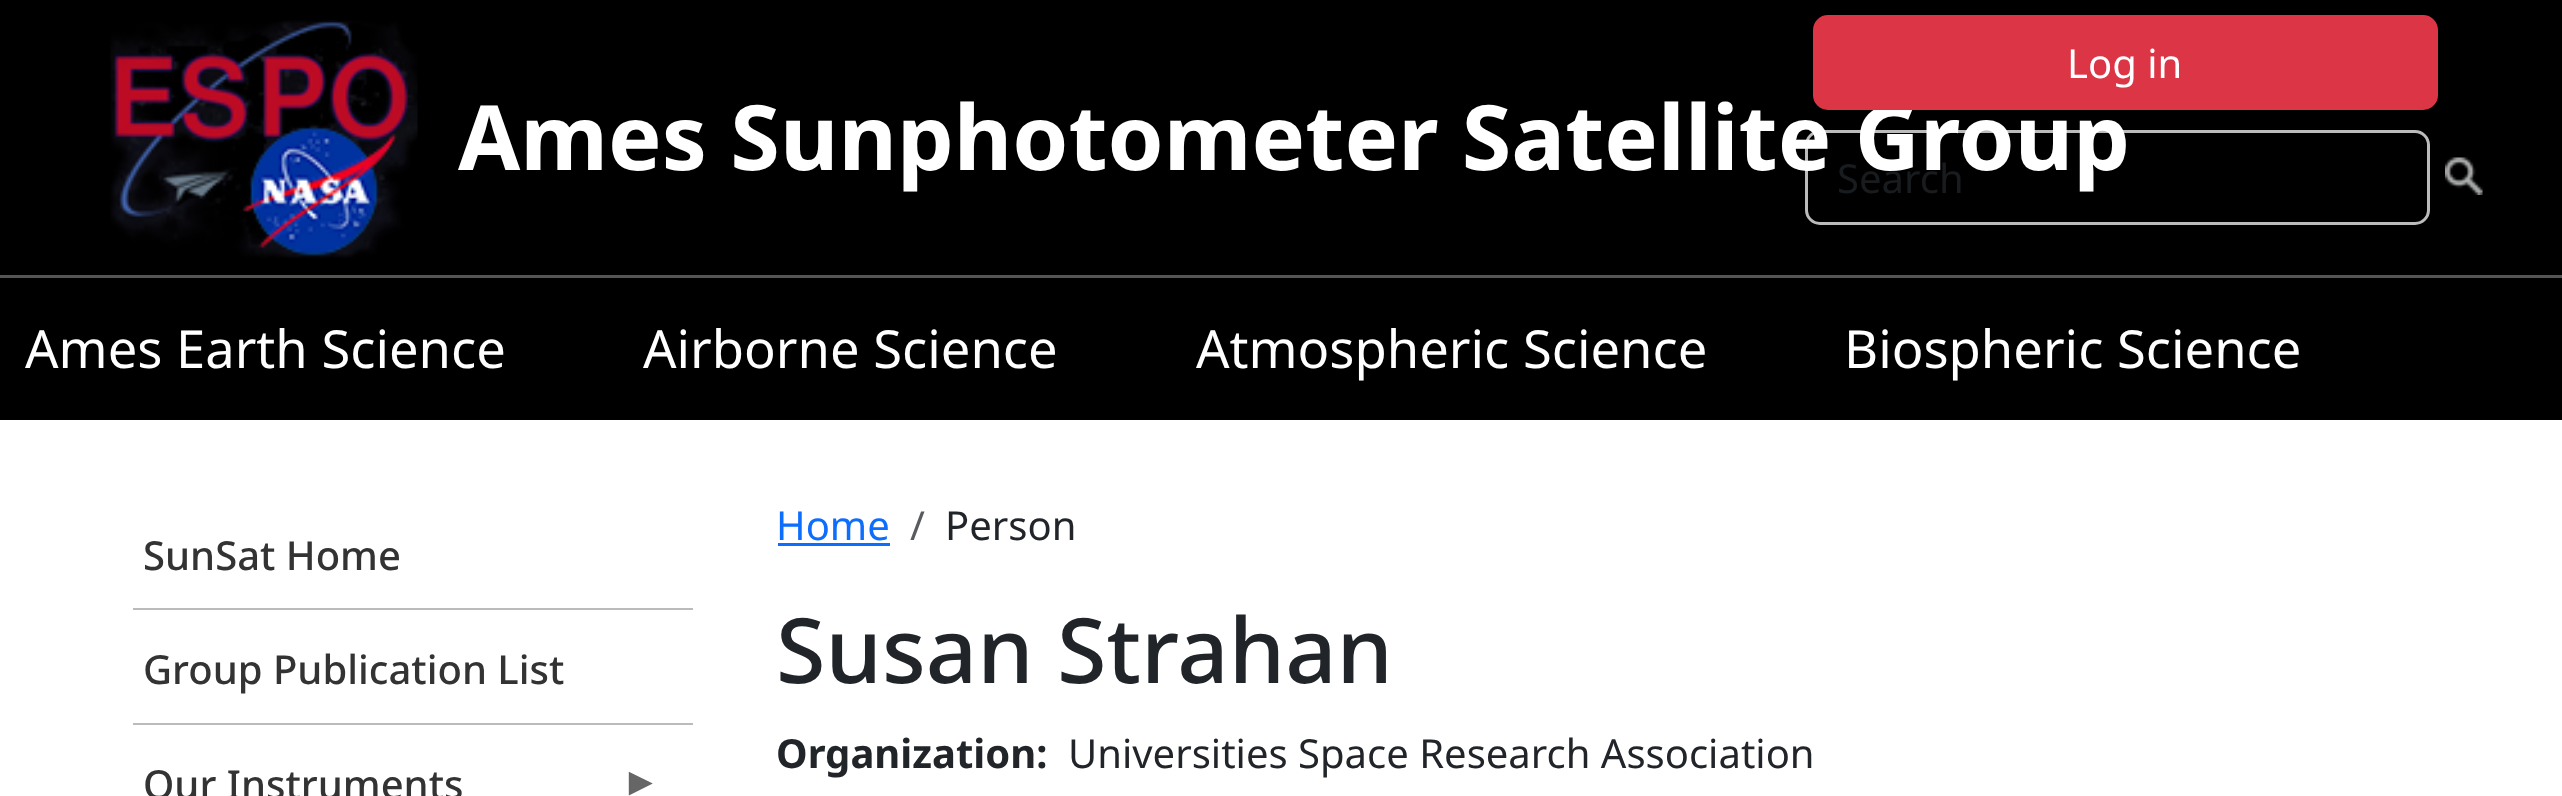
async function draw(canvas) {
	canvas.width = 2562;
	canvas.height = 796;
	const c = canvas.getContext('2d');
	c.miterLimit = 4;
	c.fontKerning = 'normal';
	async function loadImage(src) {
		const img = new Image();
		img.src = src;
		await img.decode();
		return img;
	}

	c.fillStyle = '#fff';
	c.fillRect(0, 0, 2562, 796);
	c.fillStyle = '#000';
	c.fillRect(0, 0, 2562, 275);
	c.beginPath();
	c.roundRect(1806.5, 131.5, 622, 92, 13.5);
	c.strokeStyle = '#bbb';
	c.lineWidth = 3;
	c.stroke();
	c.font = '40px Noto Sans';
	c.fillStyle = '#191c1f';
	c.fillText('Search', 1837, 193);
	c.font = 'bold 90px Noto Sans';
	c.fillStyle = '#fff';
	c.fillText('Ames Sunphotometer Satellite Group', 458, 170);
	c.fillStyle = '#dc3545';
	c.beginPath();
	c.roundRect(1814.5, 16.5, 622, 92, 13.5);
	c.fill();
	c.strokeStyle = '#dc3545';
	c.stroke();
	c.font = '40px Noto Sans';
	c.fillStyle = '#fff';
	c.fillText('Log in', 2067, 78);
	c.drawImage(await loadImage('img1.png'), 110, 20, 308, 238);
	c.drawImage(await loadImage('img2.png'), 2445, 157, 38, 38);
	c.fillStyle = '#000';
	c.fillRect(0, 278, 2562, 142);
	c.fillStyle = '#555';
	c.fillRect(0, 275, 2562, 3);
	c.font = '52.5px Noto Sans';
	c.fillStyle = '#fff';
	for (const [text, x, y] of [
		['Ames Earth Science', 25, 368],
		['Airborne Science', 643, 368],
		['Atmospheric Science', 1196, 368],
		['Biospheric Science', 1844, 368],
	]) {
		c.fillText(text, x, y);
	}
	c.fillStyle = '#bbb';
	c.fillRect(133, 608, 560, 2);
	c.font = '500 40px Noto Sans';
	c.fillStyle = '#333';
	c.fillText('SunSat Home', 143, 570);
	c.fillStyle = '#bbb';
	c.fillRect(133, 723, 560, 2);
	c.fillStyle = '#333';
	c.fillText('Group Publication List', 143, 684);
	c.fillText('Our Instruments', 143, 799);
	c.font = '40px Liberation Sans';
	c.fillStyle = '#666';
	c.fillText('►', 621, 795);
	c.font = '40px Noto Sans';
	c.fillStyle = '#0d6efd';
	c.fillText('Home', 776, 540);
	c.fillRect(778, 543, 112, 3);
	c.fillStyle = '#595c5f';
	c.fillText('/', 910, 540);
	c.fillStyle = '#212529';
	c.fillText('Person', 945, 540);
	c.font = '500 90px Noto Sans';
	c.fillText('Susan Strahan', 776, 683);
	c.font = 'bold 40px Noto Sans';
	c.fillText('Organization:', 776, 768);
	c.font = '40px Noto Sans';
	c.fillText('Universities Space Research Association', 1068, 768);
}

draw(document.querySelector('canvas'));
